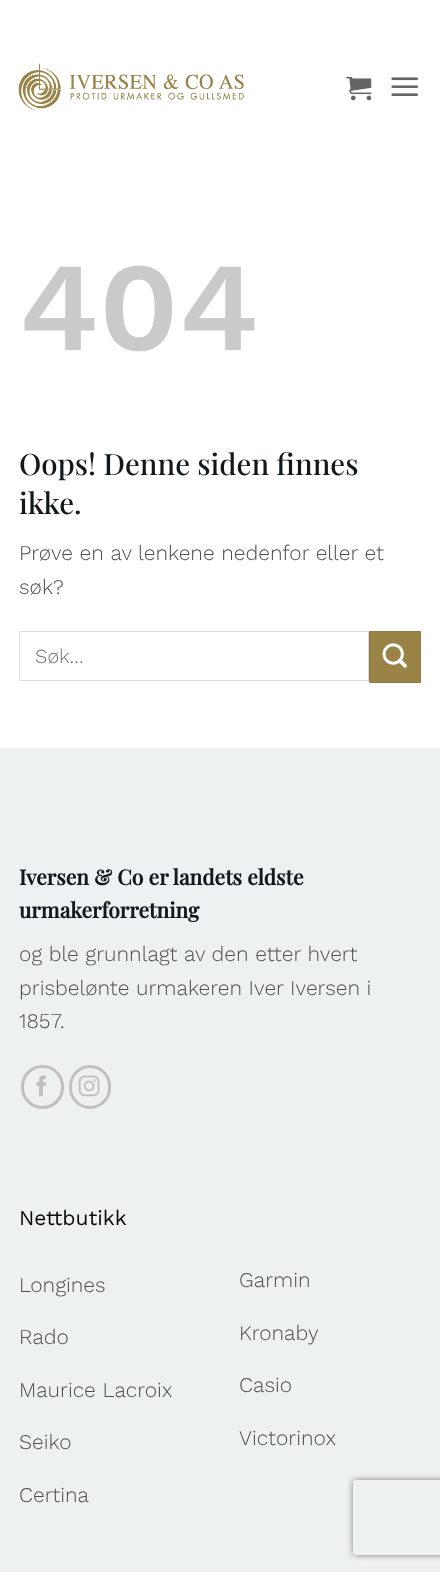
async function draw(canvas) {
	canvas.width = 440;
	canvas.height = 1572;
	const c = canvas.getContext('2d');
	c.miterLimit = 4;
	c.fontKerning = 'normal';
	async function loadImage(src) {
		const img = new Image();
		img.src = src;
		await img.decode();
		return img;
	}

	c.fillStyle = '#fff';
	c.fillRect(0, 0, 440, 1572);
	c.drawImage(await loadImage('img1.png'), 18, 63, 226, 47);
	c.drawImage(await loadImage('img2.png'), 346, 76, 26, 25);
	c.drawImage(await loadImage('img3.png'), 391, 77, 27, 19);
	c.font = '600 126px Work Sans';
	c.fillStyle = '#cacaca';
	c.fillText('404', 19, 350);
	c.font = '500 29.4px Playfair Display';
	c.fillStyle = '#12181c';
	c.fillText('Oops! Denne siden finnes', 19, 475);
	c.fillText('ikke.', 19, 514);
	c.font = '300 21px Work Sans';
	c.fillStyle = '#4f4f4f';
	c.fillText('Prøve en av lenkene nedenfor eller et', 19, 560);
	c.fillText('søk?', 19, 594);
	c.strokeStyle = '#ddd';
	c.strokeRect(19.5, 631.5, 349, 49);
	c.font = '300 20px Work Sans';
	c.fillStyle = '#757575';
	c.fillText('Søk…', 35, 663);
	c.fillStyle = '#9a8347';
	c.beginPath();
	c.rect(369.5, 631.5, 51, 51);
	c.fill();
	c.strokeStyle = '#927c43';
	c.stroke();
	c.drawImage(await loadImage('img4.png'), 382, 643, 25, 25);
	c.fillStyle = '#eef1f1';
	c.fillRect(0, 748, 440, 824);
	c.font = 'bold 21px Playfair Display';
	c.fillStyle = '#12181c';
	c.fillText('Iversen & Co er landets eldste', 19, 885);
	c.fillText('urmakerforretning', 19, 918);
	c.font = '300 21px Work Sans';
	c.fillStyle = '#4f4f4f';
	for (const [text, x, y] of [
		['og ble grunnlagt av den etter hvert', 19, 961],
		['prisbelønte urmakeren Iver Iversen i', 19, 995],
		['1857.', 19, 1028],
	]) {
		c.fillText(text, x, y);
	}
	c.beginPath();
	c.roundRect(22.5, 1066.5, 40, 41, 20);
	c.strokeStyle = '#c0c0c0';
	c.lineWidth = 3;
	c.stroke();
	c.drawImage(await loadImage('img5.png'), 36, 1075, 11, 22);
	c.beginPath();
	c.roundRect(70.5, 1066.5, 39, 41, 19.5);
	c.stroke();
	c.drawImage(await loadImage('img6.png'), 78, 1075, 22, 22);
	c.font = '21px Work Sans';
	c.fillStyle = '#0a0a0a';
	c.fillText('Nettbutikk', 19, 1225);
	c.font = '300 21px Work Sans';
	c.fillStyle = '#4f4f4f';
	for (const [text, x, y] of [
		['Longines', 19, 1292],
		['Rado', 19, 1344],
		['Maurice Lacroix', 19, 1397],
		['Seiko', 19, 1449],
		['Certina', 19, 1502],
		['Garmin', 239, 1287],
		['Kronaby', 239, 1340],
		['Casio', 239, 1392],
		['Victorinox', 239, 1445],
	]) {
		c.fillText(text, x, y);
	}
	c.save();
	c.beginPath();
	c.moveTo(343, 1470);
	c.lineTo(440, 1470);
	c.lineTo(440, 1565);
	c.lineTo(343, 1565);
	c.closePath();
	c.moveTo(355.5, 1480);
	c.lineTo(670.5, 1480);
	c.bezierCurveTo(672, 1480, 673, 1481, 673, 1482.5);
	c.lineTo(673, 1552.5);
	c.bezierCurveTo(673, 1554, 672, 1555, 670.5, 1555);
	c.lineTo(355.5, 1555);
	c.bezierCurveTo(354, 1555, 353, 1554, 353, 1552.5);
	c.lineTo(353, 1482.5);
	c.bezierCurveTo(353, 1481, 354, 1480, 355.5, 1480);
	c.closePath();
	c.clip('evenodd');
	c.fillStyle = '#808080';
	c.filter = 'blur(3px)';
	c.beginPath();
	c.roundRect(353, 1480, 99, 75, 2.5);
	c.fill();
	c.filter = 'none';
	c.restore();
}

draw(document.querySelector('canvas'));
